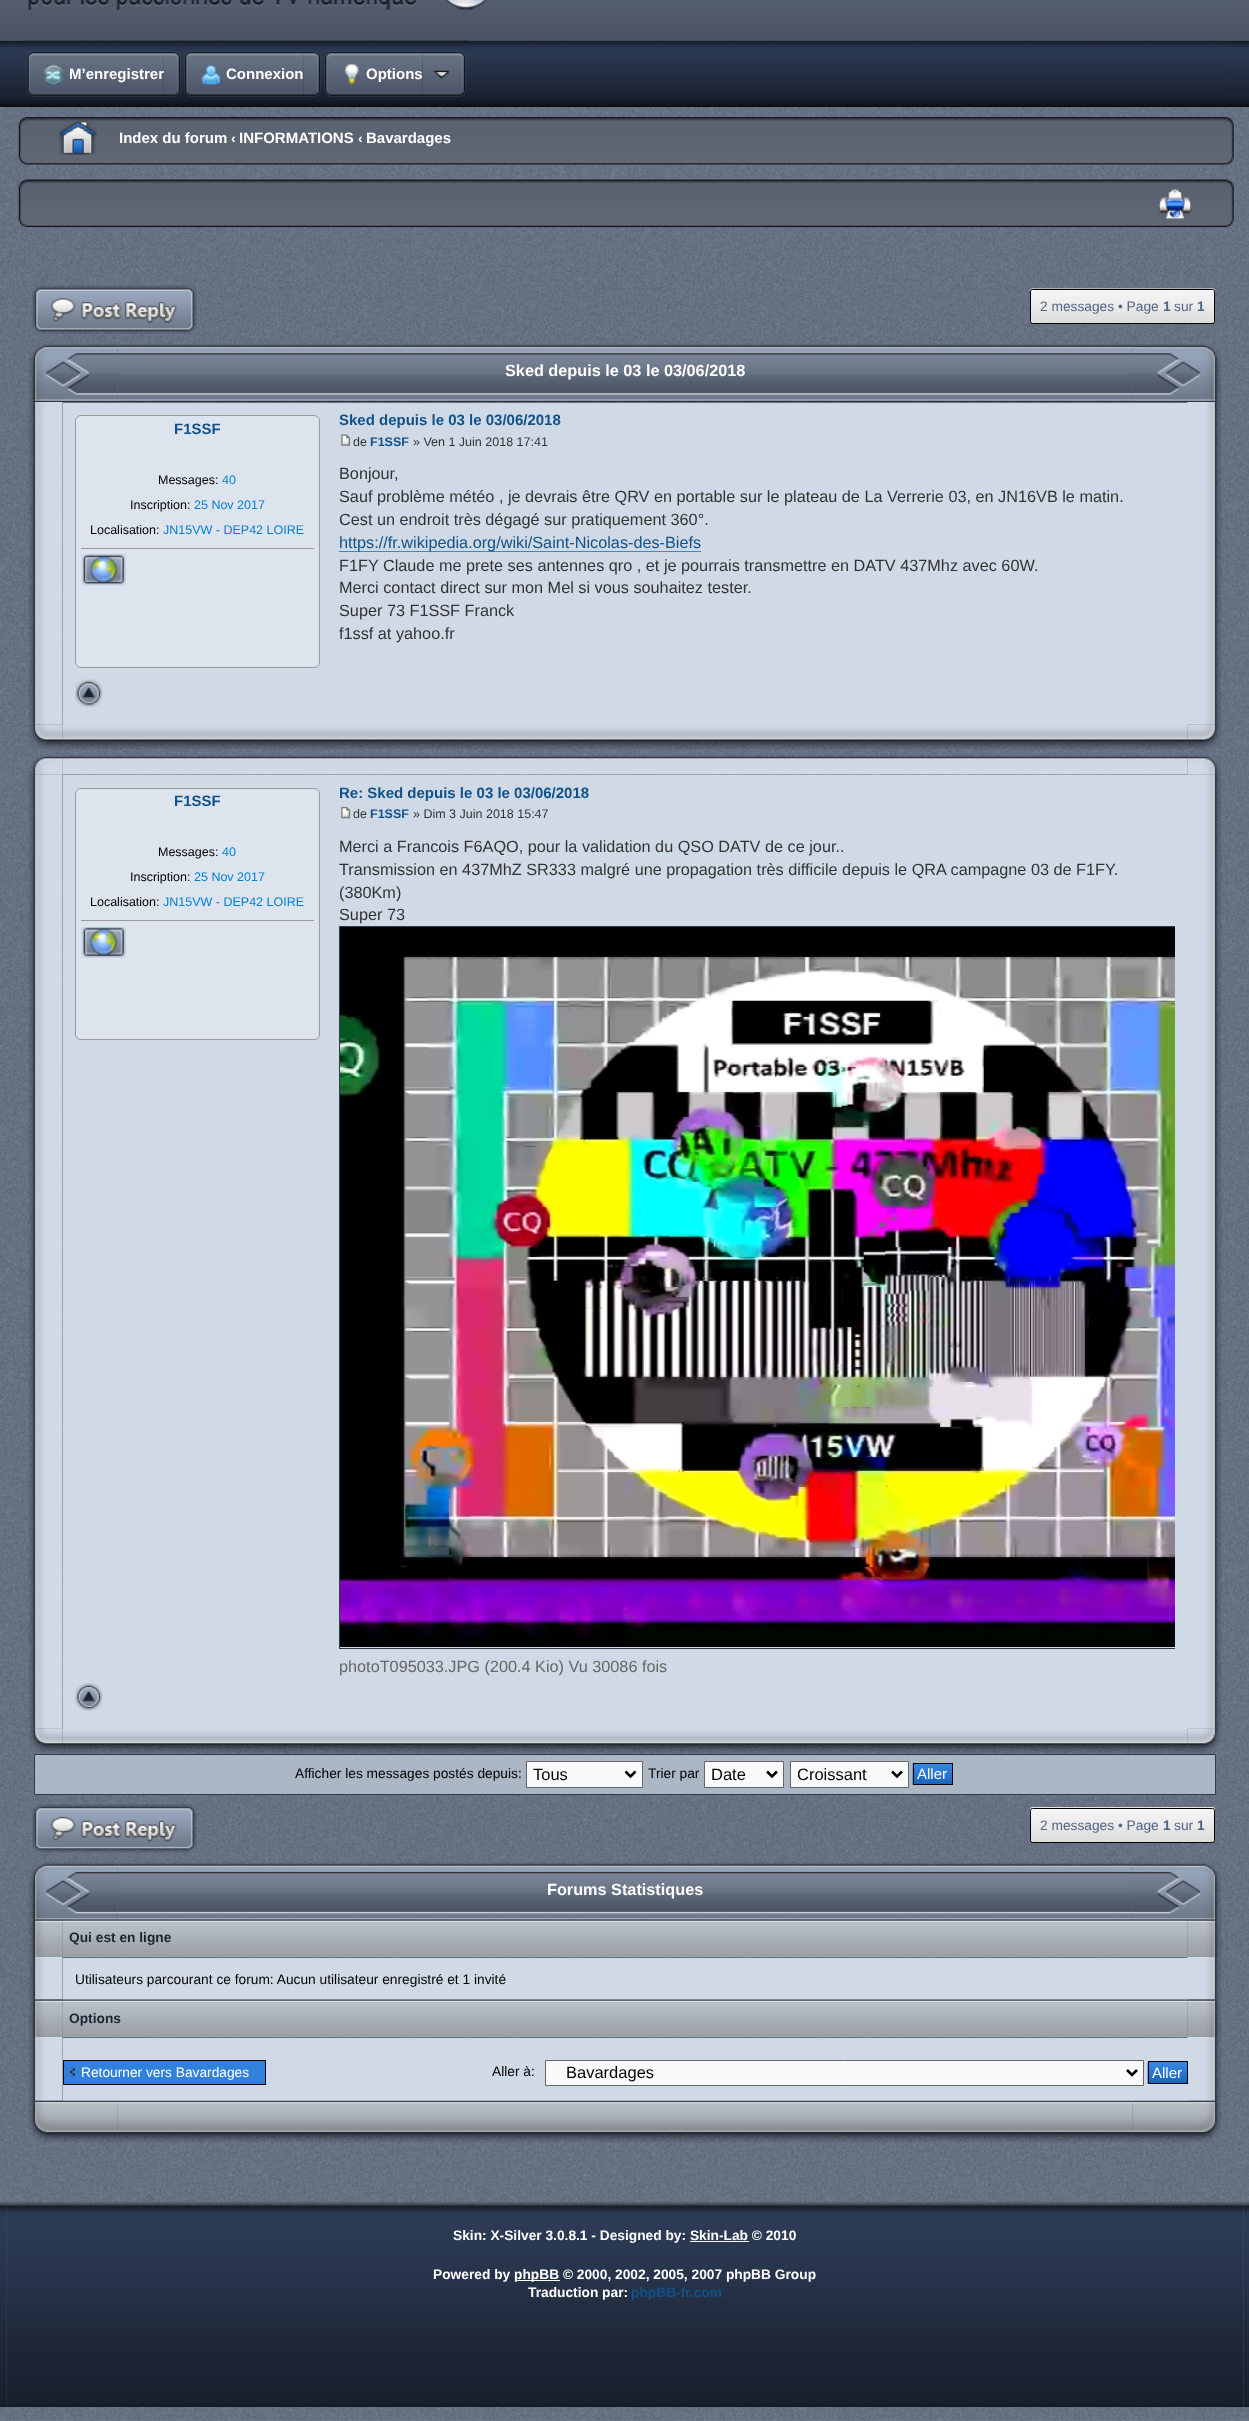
async function draw(canvas) {
	canvas.width = 1249;
	canvas.height = 2421;
	const c = canvas.getContext('2d');
	c.miterLimit = 4;
	c.fontKerning = 'normal';
	async function loadImage(src) {
		const img = new Image();
		img.src = src;
		await img.decode();
		return img;
	}

	c.fillStyle = '#fff';
	c.fillRect(0, 0, 1249, 2421);
	c.drawImage(await loadImage('img1.png'), 0, 2420, 1249, 1);
	c.drawImage(await loadImage('img2.png'), 0, 40, 1249, 2381);
	c.drawImage(await loadImage('img3.png'), 0, 0, 25, 41);
	c.drawImage(await loadImage('img4.png'), 1225, 0, 24, 41);
	c.drawImage(await loadImage('img5.png'), 25, 0, 1200, 41);
	c.drawImage(await loadImage('img6.png'), 28, 0, 459, 12);
	c.drawImage(await loadImage('img7.png'), 0, 40, 25, 67);
	c.drawImage(await loadImage('img8.png'), 1225, 40, 24, 67);
	c.drawImage(await loadImage('img9.png'), 25, 40, 1200, 67);
	c.drawImage(await loadImage('img10.png'), 163, 40, 20, 57);
	c.drawImage(await loadImage('img11.png'), 25, 40, 139, 57);
	c.drawImage(await loadImage('img12.png'), 44, 64, 20, 21);
	c.font = 'bold 15px Liberation Sans';
	c.fillText('M’enregistrer', 69, 79);
	c.drawImage(await loadImage('img10.png'), 303, 40, 20, 57);
	c.drawImage(await loadImage('img13.png'), 182, 40, 122, 57);
	c.drawImage(await loadImage('img14.png'), 201, 65, 20, 20);
	c.fillText('Connexion', 226, 79);
	c.drawImage(await loadImage('img15.png'), 422, 40, 46, 57);
	c.drawImage(await loadImage('img16.png'), 322, 40, 101, 57);
	c.drawImage(await loadImage('img17.png'), 344, 64, 15, 21);
	c.fillText('Options', 366, 79);
	c.drawImage(await loadImage('img18.png'), 18, 116, 32, 50);
	c.drawImage(await loadImage('img19.png'), 1200, 116, 35, 50);
	c.drawImage(await loadImage('img20.png'), 50, 116, 1150, 50);
	c.drawImage(await loadImage('img21.png'), 58, 120, 40, 35);
	c.fillText('Index du forum', 119, 143);
	c.font = 'bold 13.75px Liberation Sans';
	c.fillText('‹', 231, 143);
	c.font = 'bold 15px Liberation Sans';
	c.fillText('INFORMATIONS', 239, 143);
	c.font = 'bold 13.75px Liberation Sans';
	c.fillText('‹', 358, 143);
	c.font = 'bold 15px Liberation Sans';
	c.fillText('Bavardages', 366, 143);
	c.drawImage(await loadImage('img22.png'), 18, 178, 32, 50);
	c.drawImage(await loadImage('img23.png'), 1200, 178, 35, 50);
	c.drawImage(await loadImage('img24.png'), 50, 178, 1150, 50);
	c.drawImage(await loadImage('img25.png'), 1158, 189, 34, 31);
	c.drawImage(await loadImage('img26.png'), 32, 285, 165, 49);
	c.drawImage(await loadImage('img27.png'), 1030, 288, 185, 36);
	c.beginPath();
	c.roundRect(1030.5, 289.5, 184, 34, 2);
	c.strokeStyle = '#000';
	c.stroke();
	c.font = '13.75px Liberation Sans';
	c.fillStyle = '#536482';
	c.fillText('2 messages • Page', 1040, 311);
	c.font = 'bold 13.75px Liberation Sans';
	c.fillText('1', 1163, 311);
	c.font = '13.75px Liberation Sans';
	c.fillText('sur', 1174, 311);
	c.font = 'bold 13.75px Liberation Sans';
	c.fillText('1', 1197, 311);
	c.drawImage(await loadImage('img28.png'), 28, 344, 90, 58);
	c.drawImage(await loadImage('img29.png'), 1132, 344, 90, 58);
	c.drawImage(await loadImage('img30.png'), 117, 344, 1016, 58);
	c.font = 'bold 16.25px Liberation Sans';
	c.fillStyle = '#fff';
	c.fillText('Sked depuis le 03 le 03/06/2018', 505, 376);
	c.drawImage(await loadImage('img31.png'), 28, 402, 35, 323);
	c.drawImage(await loadImage('img32.png'), 1187, 402, 35, 323);
	c.fillStyle = '#d0d9e6';
	c.fillRect(63, 403, 1125, 322);
	c.fillStyle = '#dee4ed';
	c.beginPath();
	c.roundRect(75.5, 415.5, 244, 252, 5.5);
	c.fill();
	c.strokeStyle = '#999';
	c.stroke();
	c.font = 'bold 15px Liberation Sans';
	c.fillStyle = '#105289';
	c.fillText('F1SSF', 174, 434);
	c.font = '12.5px Liberation Sans';
	c.fillStyle = '#000';
	c.fillText('Messages:', 158, 484);
	c.fillStyle = '#0080d2';
	c.fillText('40', 222, 484);
	c.fillStyle = '#000';
	c.fillText('Inscription:', 130, 509);
	c.fillStyle = '#0080d2';
	c.fillText('25 Nov 2017', 194, 509);
	c.fillStyle = '#000';
	c.fillText('Localisation:', 90, 534);
	c.fillStyle = '#0080d2';
	c.fillText('JN15VW - DEP42 LOIRE', 163, 534);
	c.fillStyle = '#999';
	c.fillRect(81, 548, 233, 1);
	c.drawImage(await loadImage('img33.png'), 81, 554, 45, 32);
	c.drawImage(await loadImage('img34.png'), 82, 554, 43, 31);
	c.font = 'bold 15px Liberation Sans';
	c.fillStyle = '#105289';
	c.fillText('Sked depuis le 03 le 03/06/2018', 339, 425);
	c.drawImage(await loadImage('img35.png'), 341, 434, 10, 12);
	c.font = '12.5px Liberation Sans';
	c.fillStyle = '#333';
	c.fillText('de', 353, 446);
	c.font = 'bold 12.5px Liberation Sans';
	c.fillStyle = '#105289';
	c.fillText('F1SSF', 370, 446);
	c.font = '12.5px Liberation Sans';
	c.fillStyle = '#333';
	c.fillText('» Ven 1 Juin 2018 17:41', 413, 446);
	c.font = '16.25px Liberation Sans';
	for (const [text, x, y] of [
		['Bonjour,', 339, 479],
		['Sauf problème météo , je devrais être QRV en portable sur le plateau de La Verrerie 03, en JN16VB le matin.', 339, 502],
		['Cest un endroit très dégagé sur pratiquement 360°.', 339, 525],
	]) {
		c.fillText(text, x, y);
	}
	c.fillStyle = '#368ad2';
	c.fillRect(339, 551, 362, 1);
	c.fillStyle = '#105289';
	c.fillText('https://fr.wikipedia.org/wiki/Saint-Nicolas-des-Biefs', 339, 548);
	c.fillStyle = '#333';
	for (const [text, x, y] of [
		['F1FY Claude me prete ses antennes qro , et je pourrais transmettre en DATV 437Mhz avec 60W.', 339, 571],
		['Merci contact direct sur mon Mel si vous souhaitez tester.', 339, 593],
		['Super 73 F1SSF Franck', 339, 616],
		['f1ssf at yahoo.fr', 339, 639],
	]) {
		c.fillText(text, x, y);
	}
	c.drawImage(await loadImage('img36.png'), 75, 679, 28, 28);
	c.drawImage(await loadImage('img37.png'), 28, 724, 35, 26);
	c.drawImage(await loadImage('img38.png'), 1187, 724, 35, 26);
	c.drawImage(await loadImage('img39.png'), 62, 724, 1126, 26);
	c.drawImage(await loadImage('img40.png'), 28, 755, 35, 20);
	c.drawImage(await loadImage('img41.png'), 1187, 755, 35, 20);
	c.drawImage(await loadImage('img43.png'), 28, 774, 35, 955);
	c.drawImage(await loadImage('img44.png'), 1187, 774, 35, 955);
	c.drawImage(await loadImage('img42.png'), 62, 755, 1126, 20);
	c.fillStyle = '#d0d9e6';
	c.fillRect(63, 775, 1125, 954);
	c.fillStyle = '#dee4ed';
	c.beginPath();
	c.roundRect(75.5, 788.5, 244, 251, 5.5);
	c.fill();
	c.stroke();
	c.font = 'bold 15px Liberation Sans';
	c.fillStyle = '#105289';
	c.fillText('F1SSF', 174, 806);
	c.font = '12.5px Liberation Sans';
	c.fillStyle = '#000';
	c.fillText('Messages:', 158, 856);
	c.fillStyle = '#0080d2';
	c.fillText('40', 222, 856);
	c.fillStyle = '#000';
	c.fillText('Inscription:', 130, 881);
	c.fillStyle = '#0080d2';
	c.fillText('25 Nov 2017', 194, 881);
	c.fillStyle = '#000';
	c.fillText('Localisation:', 90, 906);
	c.fillStyle = '#0080d2';
	c.fillText('JN15VW - DEP42 LOIRE', 163, 906);
	c.fillStyle = '#999';
	c.fillRect(81, 920, 233, 1);
	c.drawImage(await loadImage('img45.png'), 81, 927, 45, 31);
	c.drawImage(await loadImage('img46.png'), 82, 927, 43, 30);
	c.font = 'bold 15px Liberation Sans';
	c.fillStyle = '#105289';
	c.fillText('Re: Sked depuis le 03 le 03/06/2018', 339, 798);
	c.drawImage(await loadImage('img47.png'), 341, 807, 10, 12);
	c.font = '12.5px Liberation Sans';
	c.fillStyle = '#333';
	c.fillText('de', 353, 818);
	c.font = 'bold 12.5px Liberation Sans';
	c.fillStyle = '#105289';
	c.fillText('F1SSF', 370, 818);
	c.font = '12.5px Liberation Sans';
	c.fillStyle = '#333';
	c.fillText('» Dim 3 Juin 2018 15:47', 413, 818);
	c.font = '16.25px Liberation Sans';
	for (const [text, x, y] of [
		['Merci a Francois F6AQO, pour la validation du QSO DATV de ce jour..', 339, 852],
		['Transmission en 437MhZ SR333 malgré une propagation très difficile depuis le QRA campagne 03 de F1FY.', 339, 875],
		['(380Km)', 339, 898],
		['Super 73', 339, 920],
	]) {
		c.fillText(text, x, y);
	}
	c.save();
	c.beginPath();
	c.rect(339, 926, 836, 730);
	c.clip();
	c.strokeStyle = '#303a4a';
	c.strokeRect(339.5, 926.5, 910, 722);
	c.restore();
	c.drawImage(await loadImage('img48.png'), 340, 927, 835, 720);
	c.fillStyle = '#666';
	c.fillText('photoT095033.JPG (200.4 Kio) Vu 30086 fois', 339, 1672);
	c.drawImage(await loadImage('img49.png'), 75, 1683, 28, 28);
	c.drawImage(await loadImage('img50.png'), 28, 1728, 35, 25);
	c.drawImage(await loadImage('img51.png'), 1187, 1728, 35, 25);
	c.drawImage(await loadImage('img52.png'), 62, 1728, 1126, 25);
	c.fillStyle = '#acb7c6';
	c.beginPath();
	c.rect(34.5, 1754.5, 1181, 40);
	c.fill();
	c.strokeStyle = '#303a4a';
	c.stroke();
	c.font = '13.75px Liberation Sans';
	c.fillStyle = '#000';
	c.fillText('Afficher les messages postés depuis:', 295, 1778);
	c.fillStyle = '#fafafa';
	c.beginPath();
	c.rect(526.5, 1761.5, 116, 26);
	c.fill();
	c.strokeStyle = '#666';
	c.stroke();
	c.beginPath();
	c.moveTo(625.5, 1771.5);
	c.lineTo(630.5, 1776.5);
	c.lineTo(635.5, 1771.5);
	c.strokeStyle = '#000';
	c.lineWidth = 2.5;
	c.stroke();
	c.font = '16.5px Liberation Sans';
	c.fillStyle = '#000';
	c.fillText('Tous', 533, 1780);
	c.font = '13.75px Liberation Sans';
	c.fillText('Trier par', 648, 1778);
	c.fillStyle = '#fafafa';
	c.beginPath();
	c.rect(704.5, 1761.5, 79, 26);
	c.fill();
	c.strokeStyle = '#666';
	c.lineWidth = 1;
	c.stroke();
	c.beginPath();
	c.moveTo(767, 1771.5);
	c.lineTo(772, 1776.5);
	c.lineTo(777, 1771.5);
	c.strokeStyle = '#000';
	c.lineWidth = 2.5;
	c.stroke();
	c.font = '16.5px Liberation Sans';
	c.fillStyle = '#000';
	c.fillText('Date', 711, 1780);
	c.fillStyle = '#fafafa';
	c.beginPath();
	c.rect(790.5, 1761.5, 118, 26);
	c.fill();
	c.strokeStyle = '#666';
	c.lineWidth = 1;
	c.stroke();
	c.beginPath();
	c.moveTo(892, 1771.5);
	c.lineTo(897, 1776.5);
	c.lineTo(902, 1771.5);
	c.strokeStyle = '#000';
	c.lineWidth = 2.5;
	c.stroke();
	c.fillStyle = '#000';
	c.fillText('Croissant', 797, 1780);
	c.drawImage(await loadImage('img53.png'), 912, 1763, 40, 22);
	c.lineWidth = 1;
	c.strokeRect(913.5, 1763.5, 39, 21);
	c.font = '15px Liberation Sans';
	c.fillStyle = '#fff';
	c.fillText('Aller', 917, 1779);
	c.drawImage(await loadImage('img54.png'), 32, 1804, 165, 49);
	c.drawImage(await loadImage('img55.png'), 1030, 1807, 185, 35);
	c.beginPath();
	c.roundRect(1030.5, 1808.5, 184, 34, 2);
	c.stroke();
	c.font = '13.75px Liberation Sans';
	c.fillStyle = '#536482';
	c.fillText('2 messages • Page', 1040, 1830);
	c.font = 'bold 13.75px Liberation Sans';
	c.fillText('1', 1163, 1830);
	c.font = '13.75px Liberation Sans';
	c.fillText('sur', 1174, 1830);
	c.font = 'bold 13.75px Liberation Sans';
	c.fillText('1', 1197, 1830);
	c.drawImage(await loadImage('img56.png'), 28, 1862, 90, 58);
	c.drawImage(await loadImage('img57.png'), 1132, 1862, 90, 58);
	c.drawImage(await loadImage('img59.png'), 28, 1919, 35, 38);
	c.drawImage(await loadImage('img60.png'), 1187, 1919, 35, 38);
	c.drawImage(await loadImage('img61.png'), 62, 1919, 1126, 38);
	c.drawImage(await loadImage('img58.png'), 117, 1862, 1016, 58);
	c.font = 'bold 16.25px Liberation Sans';
	c.fillStyle = '#fff';
	c.fillText('Forums Statistiques', 547, 1895);
	c.font = 'bold 13.75px Liberation Sans';
	c.fillStyle = '#1c2431';
	c.fillText('Qui est en ligne', 69, 1942);
	c.drawImage(await loadImage('img62.png'), 28, 1957, 35, 43);
	c.drawImage(await loadImage('img63.png'), 1187, 1957, 35, 43);
	c.fillStyle = '#d0d9e6';
	c.fillRect(63, 1958, 1125, 42);
	c.font = '13.75px Liberation Sans';
	c.fillStyle = '#000';
	c.fillText('Utilisateurs parcourant ce forum: Aucun utilisateur enregistré et 1 invité', 75, 1984);
	c.drawImage(await loadImage('img64.png'), 28, 1999, 35, 38);
	c.drawImage(await loadImage('img65.png'), 1187, 1999, 35, 38);
	c.drawImage(await loadImage('img66.png'), 62, 1999, 1126, 38);
	c.font = 'bold 13.75px Liberation Sans';
	c.fillStyle = '#1c2431';
	c.fillText('Options', 69, 2023);
	c.drawImage(await loadImage('img67.png'), 28, 2037, 35, 64);
	c.drawImage(await loadImage('img68.png'), 1187, 2037, 35, 64);
	c.fillStyle = '#d0d9e6';
	c.fillRect(63, 2038, 1125, 63);
	c.fillStyle = '#3180db';
	c.fillRect(64, 2061, 201, 23);
	c.drawImage(await loadImage('img69.png'), 70, 2068, 5, 8);
	c.strokeRect(63.5, 2060.5, 202, 24);
	c.font = '13.75px Liberation Sans';
	c.fillStyle = '#fff';
	c.fillText('Retourner vers Bavardages', 81, 2077);
	c.fillStyle = '#000';
	c.fillText('Aller à:', 492, 2076);
	c.fillStyle = '#fafafa';
	c.beginPath();
	c.rect(545.5, 2060.5, 598, 25);
	c.fill();
	c.strokeStyle = '#666';
	c.stroke();
	c.beginPath();
	c.moveTo(1127, 2070);
	c.lineTo(1132, 2075);
	c.lineTo(1137, 2070);
	c.strokeStyle = '#000';
	c.lineWidth = 2.5;
	c.stroke();
	c.font = '16.5px Liberation Sans';
	c.fillStyle = '#000';
	c.fillText('Bavardages', 566, 2078);
	c.drawImage(await loadImage('img70.png'), 1147, 2062, 40, 22);
	c.lineWidth = 1;
	c.strokeRect(1148.5, 2061.5, 39, 22);
	c.font = '15px Liberation Sans';
	c.fillStyle = '#fff';
	c.fillText('Aller', 1152, 2078);
	c.drawImage(await loadImage('img71.png'), 28, 2100, 90, 43);
	c.drawImage(await loadImage('img72.png'), 1132, 2100, 90, 43);
	c.drawImage(await loadImage('img73.png'), 117, 2100, 1016, 43);
	c.drawImage(await loadImage('img74.png'), 0, 2201, 7, 206);
	c.drawImage(await loadImage('img75.png'), 1243, 2201, 6, 206);
	c.drawImage(await loadImage('img76.png'), 6, 2201, 1238, 206);
	c.font = 'bold 13.75px Liberation Sans';
	c.fillText('Skin: X-Silver 3.0.8.1 - Designed by: Skin-Lab © 2010', 453, 2240);
	c.fillRect(690, 2241, 59, 1);
	c.fillText('Powered by', 433, 2279);
	c.fillRect(515, 2280, 45, 1);
	c.fillText('phpBB © 2000, 2002, 2005, 2007 phpBB Group', 514, 2279);
	c.fillText('Traduction par:', 528, 2297);
	c.fillStyle = '#105289';
	c.fillText('phpBB-fr.com', 631, 2297);
}

draw(document.querySelector('canvas'));
